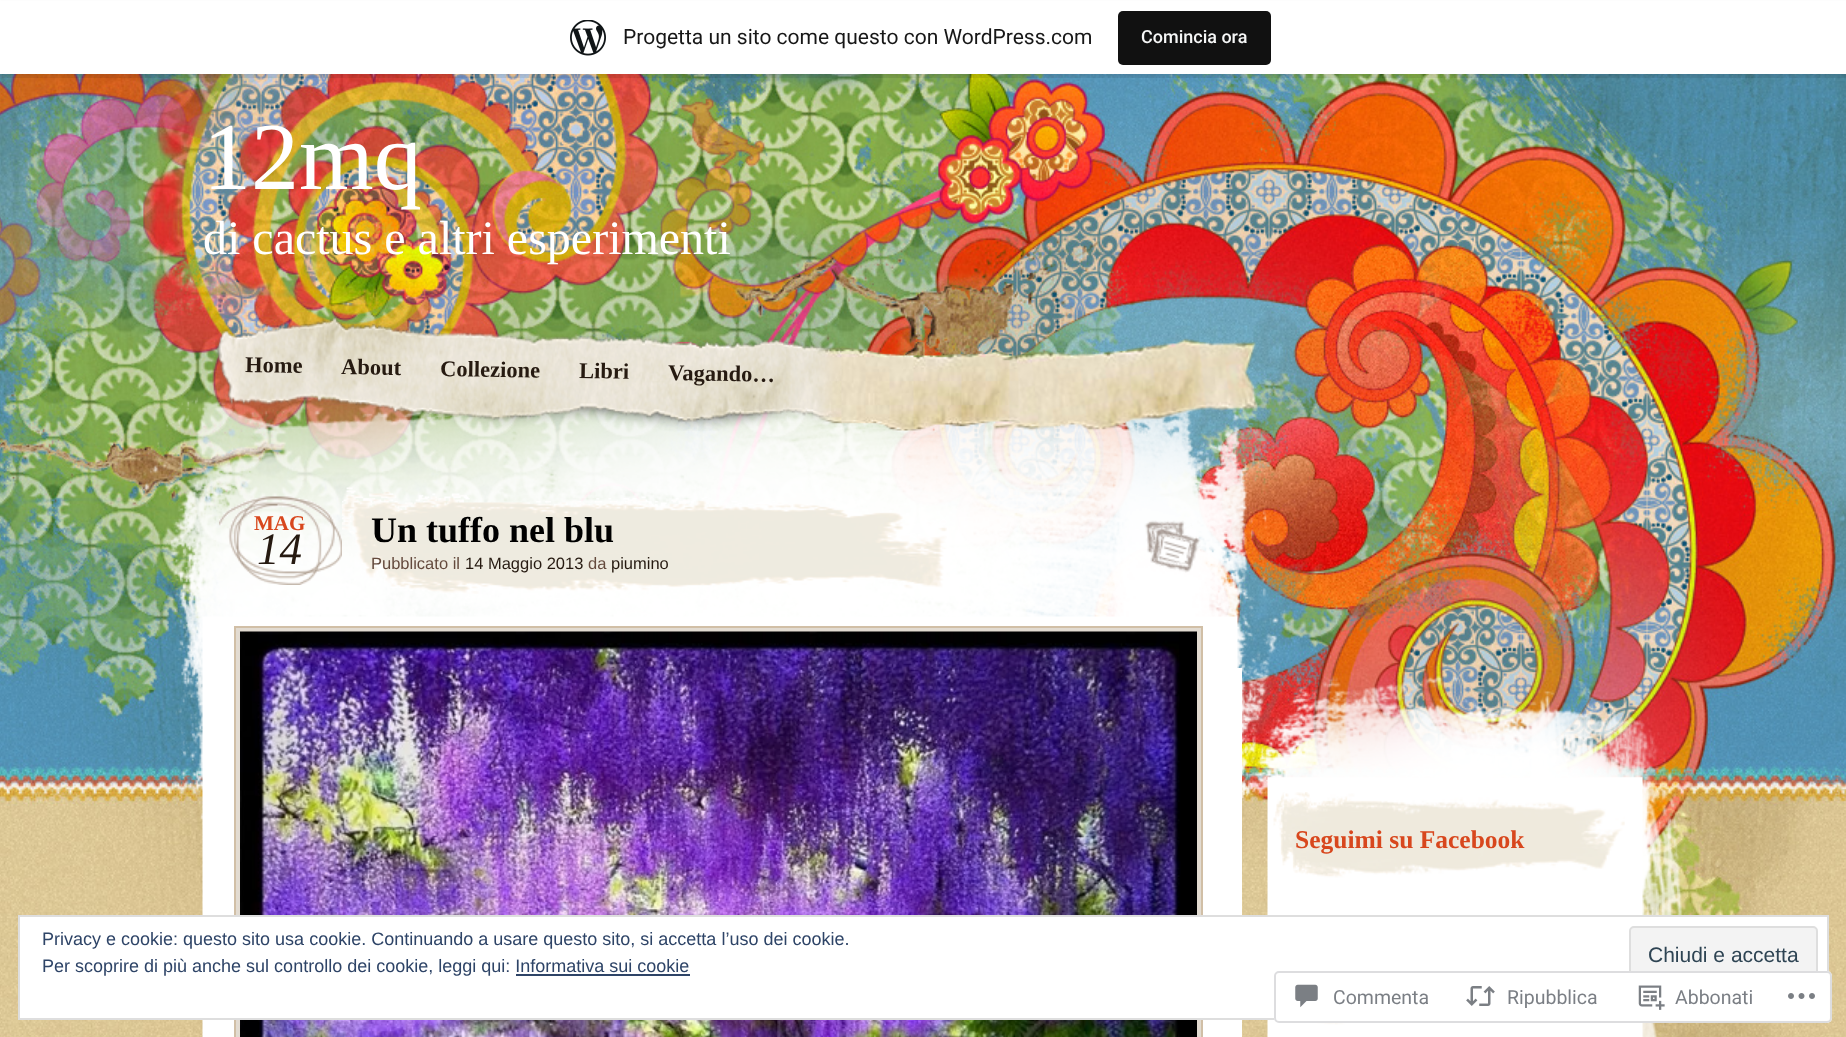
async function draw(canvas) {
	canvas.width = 1846;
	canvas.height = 1037;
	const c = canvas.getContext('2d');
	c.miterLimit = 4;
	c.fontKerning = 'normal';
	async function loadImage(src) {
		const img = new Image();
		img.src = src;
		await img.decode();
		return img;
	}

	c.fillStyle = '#fff';
	c.fillRect(0, 0, 1846, 1037);
	c.drawImage(await loadImage('img2.png'), 0, 74, 1846, 963);
	c.fillStyle = '#0000000d';
	c.filter = 'blur(1.5px)';
	c.beginPath();
	c.rect(0, 2, 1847, 73);
	c.fill();
	c.filter = 'none';
	c.fillStyle = '#00000014';
	c.beginPath();
	c.moveTo(2, 74);
	c.lineTo(2, 78);
	c.lineTo(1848, 78);
	c.lineTo(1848, 5);
	c.lineTo(1846, 5);
	c.lineTo(1846, 74);
	c.closePath();
	c.fill();
	c.fillStyle = '#fff';
	c.fillRect(0, 1, 1846, 73);
	c.drawImage(await loadImage('img1.png'), 570, 20, 36, 36);
	c.font = '21px Roboto';
	c.fillStyle = '#171717';
	c.fillText('Progetta un sito come questo con WordPress.com', 623, 44);
	c.fillStyle = '#111';
	c.beginPath();
	c.roundRect(1118, 11, 153, 54, 5);
	c.fill();
	c.font = '500 18px Roboto';
	c.fillStyle = '#f6f7f7';
	c.fillText('Comincia ora', 1141, 43);
	c.font = '96px Liberation Serif';
	c.fillStyle = '#fff';
	c.fillText('12mq', 203, 189);
	c.font = '48px Liberation Serif';
	c.fillText('di cactus e altri esperimenti', 203, 254);
	c.drawImage(await loadImage('img4.png'), 134, 370, 1549, 667);
	c.drawImage(await loadImage('img3.png'), 215, 314, 1043, 117);
	c.font = 'bold 22.5px Liberation Serif';
	c.fillStyle = '#261a11';
	c.save();
	c.translate(245, 372);
	c.rotate(1 * Math.PI / 180);
	c.fillText('Home', 0, 0);
	c.restore();
	c.save();
	c.translate(341, 374);
	c.rotate(1 * Math.PI / 180);
	c.fillText('About', 0, 0);
	c.restore();
	c.save();
	c.translate(440, 376);
	c.rotate(1 * Math.PI / 180);
	c.fillText('Collezione', 0, 0);
	c.restore();
	c.save();
	c.translate(579, 378);
	c.rotate(1 * Math.PI / 180);
	c.fillText('Libri', 0, 0);
	c.restore();
	c.save();
	c.translate(668, 380);
	c.rotate(1 * Math.PI / 180);
	c.fillText('Vagando…', 0, 0);
	c.restore();
	c.fillStyle = '#fff';
	c.fillRect(1237, 668, 5, 369);
	c.drawImage(await loadImage('img5.png'), 219, 496, 123, 89);
	c.font = 'bold 21px Liberation Serif';
	c.fillStyle = '#d8471d';
	c.fillText('MAG', 254, 530);
	c.font = 'italic 45px Liberation Serif';
	c.fillStyle = '#261a11';
	c.fillText('14', 257, 564);
	c.drawImage(await loadImage('img6.png'), 342, 487, 605, 107);
	c.font = 'bold 36px Liberation Serif';
	c.fillStyle = '#000';
	c.fillText('Un tuffo nel blu', 371, 542);
	c.font = '16.5px Liberation Sans';
	c.fillStyle = '#644a3d';
	c.fillText('Pubblicato il', 371, 569);
	c.fillStyle = '#261a11';
	c.fillText('14 Maggio 2013', 465, 569);
	c.fillStyle = '#644a3d';
	c.fillText('da', 588, 569);
	c.fillStyle = '#261a11';
	c.fillText('piumino', 611, 569);
	c.drawImage(await loadImage('img7.png'), 1144, 520, 57, 53);
	c.fillStyle = '#e2dbd1';
	c.beginPath();
	c.rect(235, 627, 967, 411);
	c.fill();
	c.strokeStyle = '#d1bfa6';
	c.lineWidth = 2;
	c.stroke();
	c.drawImage(await loadImage('img8.png'), 240, 631, 957, 406);
	c.drawImage(await loadImage('img9.png'), 1273, 792, 352, 86);
	c.font = 'bold 25.5px Liberation Serif';
	c.fillStyle = '#d8471d';
	c.fillText('Seguimi su Facebook', 1295, 848);
	c.drawImage(await loadImage('img10.png'), 1294, 1020, 327, 5);
	c.fillStyle = '#fff';
	c.beginPath();
	c.rect(19, 916, 1809, 103);
	c.fill();
	c.strokeStyle = '#dedede';
	c.stroke();
	c.font = '18px Liberation Sans';
	c.fillStyle = '#2e4467';
	c.fillText('Privacy e cookie: questo sito usa cookie. Continuando a usare questo sito, si accetta l’uso dei cookie.', 42, 945);
	c.fillStyle = '#f3f3f3';
	c.beginPath();
	c.roundRect(1630, 927, 187, 56, 4);
	c.fill();
	c.stroke();
	c.font = '21px Liberation Sans';
	c.fillStyle = '#2e4453';
	c.fillText('Chiudi e accetta', 1648, 962);
	c.font = '18px Liberation Sans';
	c.fillStyle = '#2e4467';
	c.fillText('Per scoprire di più anche sul controllo dei cookie, leggi qui: Informativa sui cookie', 42, 972);
	c.fillRect(516, 974, 174, 2);
	c.fillStyle = '#fffffffa';
	c.beginPath();
	c.roundRect(1274, 971, 558, 52, 5);
	c.fill();
	c.beginPath();
	c.roundRect(1275, 972, 556, 50, 4);
	c.strokeStyle = '#dcdcdefa';
	c.stroke();
	c.drawImage(await loadImage('img11.png'), 1295, 984, 23, 24);
	c.font = '19.5px Roboto';
	c.fillStyle = '#7b7f85';
	c.fillText('Commenta', 1333, 1004);
	c.drawImage(await loadImage('img12.png'), 1466, 986, 29, 20);
	c.fillText('Ripubblica', 1507, 1004);
	c.drawImage(await loadImage('img13.png'), 1638, 985, 27, 25);
	c.fillText('Abbonati', 1675, 1004);
	c.drawImage(await loadImage('img14.png'), 1788, 993, 27, 6);
}

draw(document.querySelector('canvas'));
